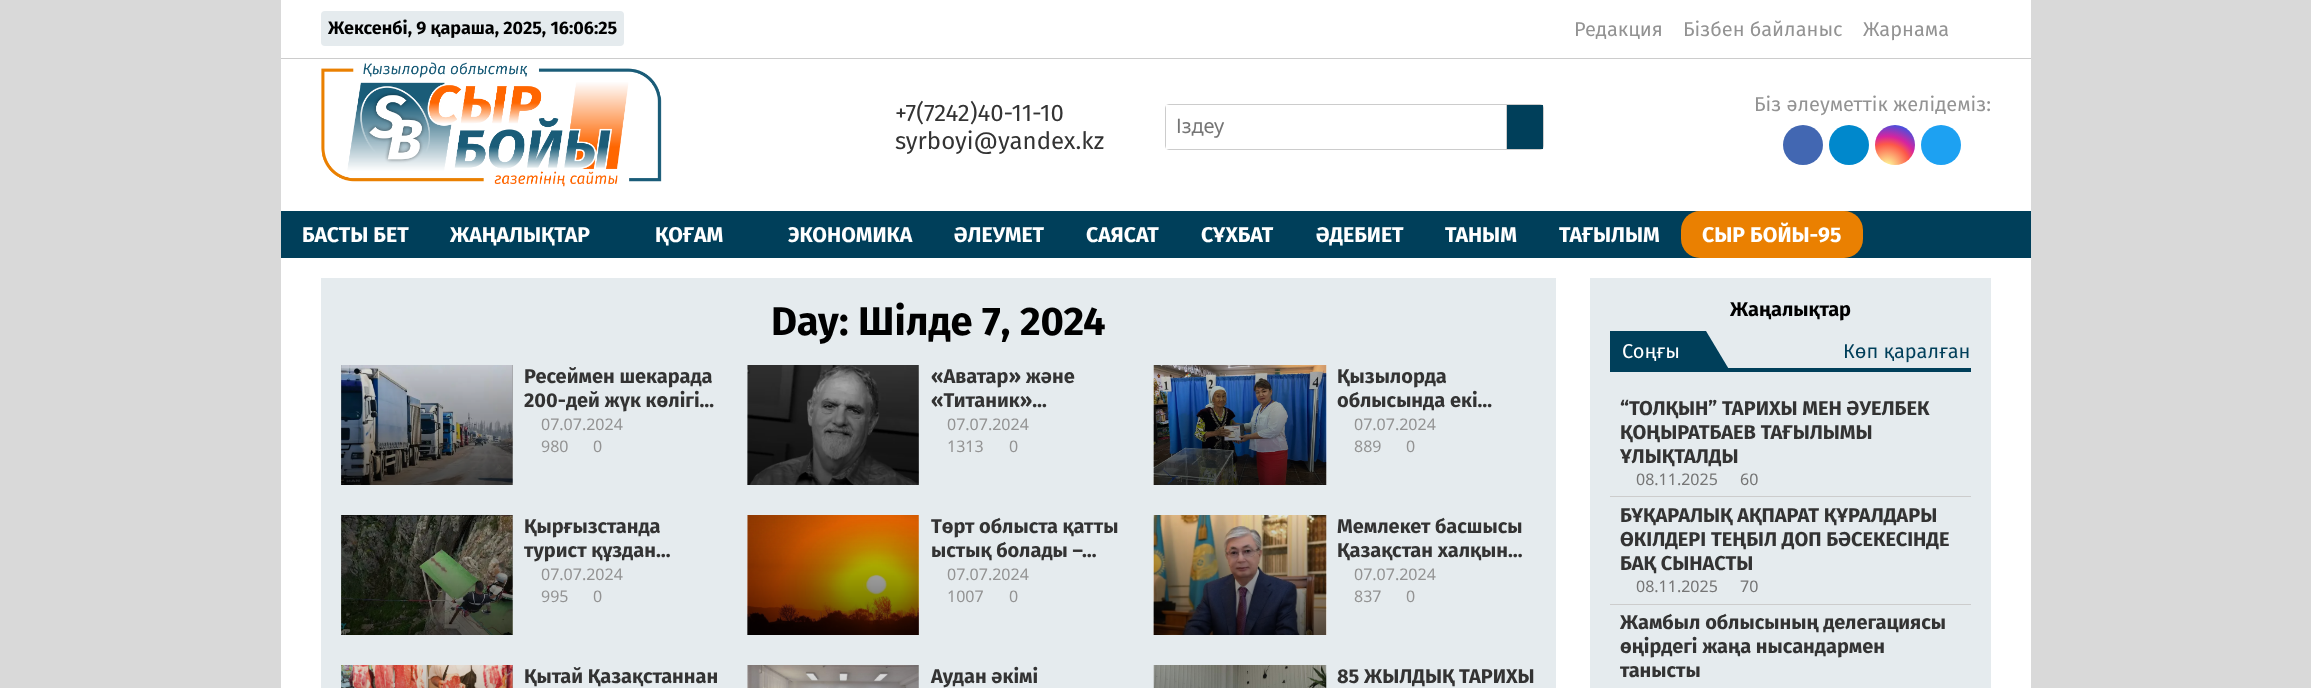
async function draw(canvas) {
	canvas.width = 2311;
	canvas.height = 688;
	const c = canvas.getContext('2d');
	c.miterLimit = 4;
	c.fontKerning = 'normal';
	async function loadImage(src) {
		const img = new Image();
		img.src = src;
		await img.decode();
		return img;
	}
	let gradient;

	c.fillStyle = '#d9d9d9';
	c.fillRect(0, 0, 2311, 688);
	c.fillStyle = '#fff';
	c.fillRect(281, 0, 1750, 688);
	c.fillStyle = '#ccc';
	c.fillRect(281, 58, 1750, 1);
	c.fillStyle = '#e5ebee';
	c.beginPath();
	c.roundRect(321, 11, 303, 35, 4);
	c.fill();
	c.font = 'bold 18px Fira Sans';
	c.fillStyle = '#000';
	c.fillText('Жексенбі, 9 қараша, 2025, 16:06:25', 328, 34);
	c.font = '20px Fira Sans';
	c.fillStyle = '#939393';
	for (const [text, x, y] of [
		['Редакция', 1574, 36],
		['Бізбен байланыс', 1683, 36],
		['Жарнама', 1863, 36],
	]) {
		c.fillText(text, x, y);
	}
	c.drawImage(await loadImage('img1.png'), 321, 62, 341, 125);
	c.font = '24px Fira Sans';
	c.fillStyle = '#333';
	c.fillText('+7(7242)40-11-10', 895, 121);
	c.fillText('syrboyi@yandex.kz', 895, 149);
	c.beginPath();
	c.roundRect(1165.5, 104.5, 378, 45, 3.5);
	c.strokeStyle = '#ccc';
	c.stroke();
	c.fillStyle = '#fff';
	c.fillRect(1166, 105, 3, 44);
	c.font = '20px Noto Sans';
	c.fillStyle = '#757575';
	c.fillText('Іздеу', 1176, 133);
	c.fillStyle = '#003f5a';
	c.fillRect(1507, 105, 36, 44);
	c.fillStyle = '#ccc';
	c.fillRect(1506, 105, 1, 44);
	c.font = '20px Fira Sans';
	c.fillStyle = '#939393';
	c.fillText('Біз әлеуметтік желідеміз:', 1754, 111);
	c.fillStyle = '#4267b2';
	c.beginPath();
	c.arc(1803, 145, 20, 0, 2 * Math.PI);
	c.fill();
	c.fillStyle = '#08c';
	c.beginPath();
	c.arc(1849, 145, 20, 0, 2 * Math.PI);
	c.fill();
	gradient = c.createRadialGradient(1887, 167, 0, 1887, 167, 51);
	gradient.addColorStop(0, '#fdf497');
	gradient.addColorStop(0.05, '#fdf497');
	gradient.addColorStop(0.45, '#fd5949');
	gradient.addColorStop(0.6, '#d6249f');
	gradient.addColorStop(0.9, '#285aeb');
	c.fillStyle = gradient;
	c.beginPath();
	c.arc(1895, 145, 20, 0, 2 * Math.PI);
	c.fill();
	c.fillStyle = '#1da1f2';
	c.beginPath();
	c.arc(1941, 145, 20, 0, 2 * Math.PI);
	c.fill();
	c.fillStyle = '#003f5a';
	c.fillRect(281, 211, 1750, 47);
	c.font = 'bold 21.25px Fira Sans';
	c.fillStyle = '#fff';
	for (const [text, x, y] of [
		['БАСТЫ БЕТ', 302, 242],
		['ЖАҢАЛЫҚТАР', 450, 242],
		['ҚОҒАМ', 655, 242],
		['ЭКОНОМИКА', 788, 242],
		['ӘЛЕУМЕТ', 954, 242],
		['САЯСАТ', 1086, 242],
		['СҰХБАТ', 1201, 242],
		['ӘДЕБИЕТ', 1316, 242],
		['ТАНЫМ', 1445, 242],
		['ТАҒЫЛЫМ', 1559, 242],
	]) {
		c.fillText(text, x, y);
	}
	c.fillStyle = '#ea8001';
	c.beginPath();
	c.roundRect(1681, 211, 182, 47, 19);
	c.fill();
	c.fillStyle = '#fff';
	c.fillText('СЫР БОЙЫ-95', 1702, 242);
	c.fillStyle = '#e5ebee';
	c.fillRect(321, 278, 1235, 410);
	c.font = 'bold 40px Fira Sans';
	c.fillStyle = '#000';
	c.fillText('Day: Шілде 7, 2024', 771, 335);
	c.fillStyle = '#939393';
	c.fillRect(341, 365, 172, 120);
	c.drawImage(await loadImage('img2.png'), 341, 365, 172, 120);
	c.font = 'bold 20px Fira Sans';
	c.fillStyle = '#333';
	c.fillText('Ресеймен шекарада', 524, 383);
	c.fillText('200-дей жүк көлігі…', 524, 407);
	c.font = '16px Noto Sans';
	c.fillStyle = '#939393';
	for (const [text, x, y] of [
		['07.07.2024', 541, 430],
		['980', 541, 452],
		['0', 593, 452],
	]) {
		c.fillText(text, x, y);
	}
	c.drawImage(await loadImage('img3.png'), 747, 365, 172, 120);
	c.font = 'bold 20px Fira Sans';
	c.fillStyle = '#333';
	c.fillText('«Аватар» және', 931, 383);
	c.fillText('«Титаник»…', 931, 407);
	c.font = '16px Noto Sans';
	c.fillStyle = '#939393';
	for (const [text, x, y] of [
		['07.07.2024', 947, 430],
		['1313', 947, 452],
		['0', 1009, 452],
	]) {
		c.fillText(text, x, y);
	}
	c.drawImage(await loadImage('img4.png'), 1153, 365, 174, 120);
	c.font = 'bold 20px Fira Sans';
	c.fillStyle = '#333';
	c.fillText('Қызылорда', 1337, 383);
	c.fillText('облысында екі…', 1337, 407);
	c.font = '16px Noto Sans';
	c.fillStyle = '#939393';
	for (const [text, x, y] of [
		['07.07.2024', 1354, 430],
		['889', 1354, 452],
		['0', 1406, 452],
	]) {
		c.fillText(text, x, y);
	}
	c.fillRect(341, 515, 172, 120);
	c.drawImage(await loadImage('img5.png'), 341, 515, 172, 120);
	c.font = 'bold 20px Fira Sans';
	c.fillStyle = '#333';
	c.fillText('Қырғызстанда', 524, 533);
	c.fillText('турист құздан…', 524, 557);
	c.font = '16px Noto Sans';
	c.fillStyle = '#939393';
	for (const [text, x, y] of [
		['07.07.2024', 541, 580],
		['995', 541, 602],
		['0', 593, 602],
	]) {
		c.fillText(text, x, y);
	}
	c.drawImage(await loadImage('img6.png'), 747, 515, 172, 120);
	c.font = 'bold 20px Fira Sans';
	c.fillStyle = '#333';
	c.fillText('Төрт облыста қатты', 931, 533);
	c.fillText('ыстық болады –…', 931, 557);
	c.font = '16px Noto Sans';
	c.fillStyle = '#939393';
	for (const [text, x, y] of [
		['07.07.2024', 947, 580],
		['1007', 947, 602],
		['0', 1009, 602],
	]) {
		c.fillText(text, x, y);
	}
	c.drawImage(await loadImage('img7.png'), 1153, 515, 174, 120);
	c.font = 'bold 20px Fira Sans';
	c.fillStyle = '#333';
	c.fillText('Мемлекет басшысы', 1337, 533);
	c.fillText('Қазақстан халқын…', 1337, 557);
	c.font = '16px Noto Sans';
	c.fillStyle = '#939393';
	for (const [text, x, y] of [
		['07.07.2024', 1354, 580],
		['837', 1354, 602],
		['0', 1406, 602],
	]) {
		c.fillText(text, x, y);
	}
	c.fillRect(341, 665, 172, 23);
	c.drawImage(await loadImage('img8.png'), 341, 665, 172, 23);
	c.font = 'bold 20px Fira Sans';
	c.fillStyle = '#333';
	c.fillText('Қытай Қазақстаннан', 524, 683);
	c.drawImage(await loadImage('img9.png'), 747, 665, 172, 23);
	c.fillText('Аудан әкімі', 931, 683);
	c.drawImage(await loadImage('img10.png'), 1153, 665, 174, 23);
	c.fillText('85 ЖЫЛДЫҚ ТАРИХЫ', 1337, 683);
	c.fillStyle = '#e5ebee';
	c.fillRect(1590, 278, 401, 410);
	c.fillStyle = '#000';
	c.fillText('Жаңалықтар', 1730, 316);
	c.fillStyle = '#003f5a';
	c.beginPath();
	c.moveTo(1610, 331);
	c.lineTo(1706, 331);
	c.lineTo(1730, 371);
	c.lineTo(1610, 371);
	c.closePath();
	c.fill();
	c.font = '20px Fira Sans';
	c.fillStyle = '#fff';
	c.fillText('Соңғы', 1622, 358);
	c.fillStyle = '#003f5a';
	c.fillText('Көп қаралған', 1843, 358);
	c.fillRect(1610, 368, 361, 4);
	c.fillStyle = '#ccc';
	c.fillRect(1610, 496, 361, 1);
	c.font = 'bold 20px Fira Sans';
	c.fillStyle = '#333';
	for (const [text, x, y] of [
		['“ТОЛҚЫН” ТАРИХЫ МЕН ӘУЕЛБЕК', 1620, 415],
		['ҚОҢЫРАТБАЕВ ТАҒЫЛЫМЫ', 1620, 439],
		['ҰЛЫҚТАЛДЫ', 1620, 463],
	]) {
		c.fillText(text, x, y);
	}
	c.font = '16px Noto Sans';
	c.fillStyle = '#757575';
	c.fillText('08.11.2025', 1636, 485);
	c.fillText('60', 1740, 485);
	c.fillStyle = '#ccc';
	c.fillRect(1610, 604, 361, 1);
	c.font = 'bold 20px Fira Sans';
	c.fillStyle = '#333';
	for (const [text, x, y] of [
		['БҰҚАРАЛЫҚ АҚПАРАТ ҚҰРАЛДАРЫ', 1620, 522],
		['ӨКІЛДЕРІ ТЕҢБІЛ ДОП БӘСЕКЕСІНДЕ', 1620, 546],
		['БАҚ СЫНАСТЫ', 1620, 570],
	]) {
		c.fillText(text, x, y);
	}
	c.font = '16px Noto Sans';
	c.fillStyle = '#757575';
	c.fillText('08.11.2025', 1636, 592);
	c.fillText('70', 1740, 592);
	c.font = 'bold 20px Fira Sans';
	c.fillStyle = '#333';
	for (const [text, x, y] of [
		['Жамбыл облысының делегациясы', 1620, 629],
		['өңірдегі жаңа нысандармен', 1620, 653],
		['танысты', 1620, 677],
	]) {
		c.fillText(text, x, y);
	}
}

draw(document.querySelector('canvas'));
